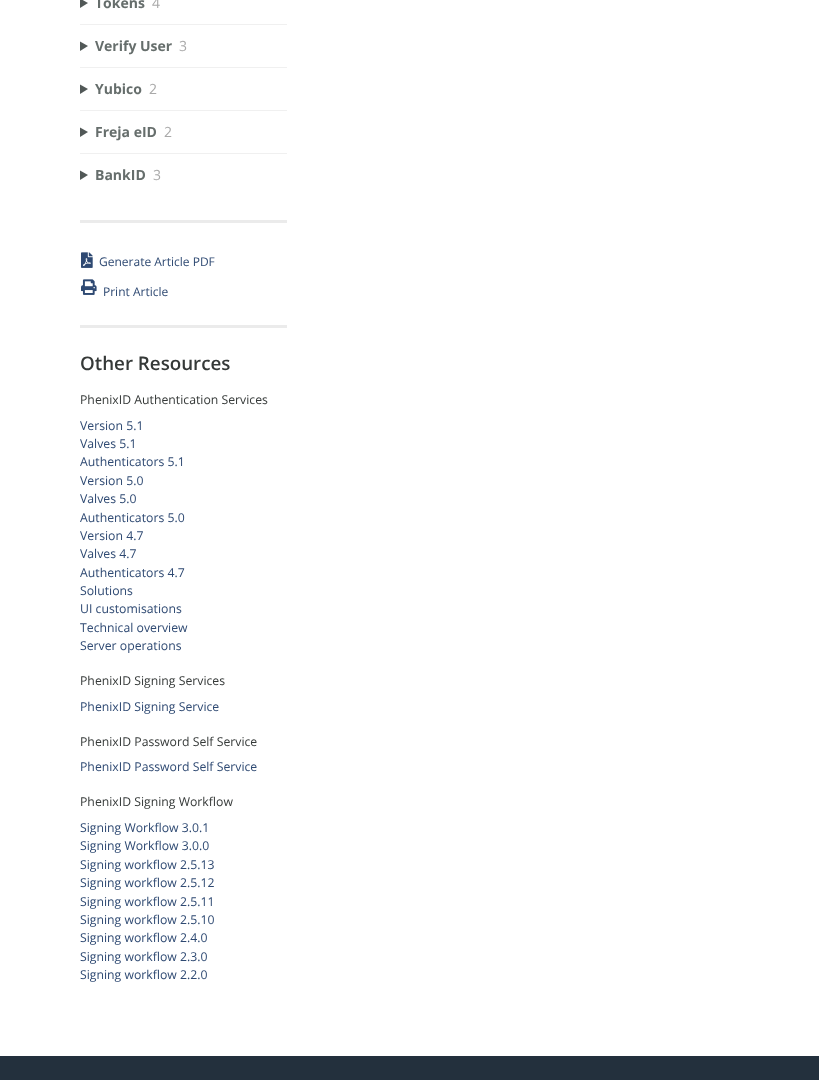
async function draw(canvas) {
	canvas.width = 819;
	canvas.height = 1080;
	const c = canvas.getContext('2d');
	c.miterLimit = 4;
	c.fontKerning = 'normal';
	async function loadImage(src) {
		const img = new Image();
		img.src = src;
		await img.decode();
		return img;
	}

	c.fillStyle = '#23303d';
	c.fillRect(0, 0, 819, 1080);
	c.fillStyle = '#fff';
	c.fillRect(0, 0, 819, 1056);
	c.fillStyle = '#515857';
	c.beginPath();
	c.moveTo(80, -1.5);
	c.lineTo(88, 3);
	c.lineTo(80, 8);
	c.closePath();
	c.fill();
	c.font = 'bold 14px Open Sans';
	c.fillStyle = '#666e6c';
	c.fillText('Tokens', 95, 8);
	c.font = '14px Open Sans';
	c.fillStyle = '#a9a9a9';
	c.fillText('4', 152, 8);
	c.fillStyle = '#f0f0f0';
	c.fillRect(80, 24, 207, 1);
	c.fillStyle = '#515857';
	c.beginPath();
	c.moveTo(80, 41.5);
	c.lineTo(88, 46);
	c.lineTo(80, 51);
	c.closePath();
	c.fill();
	c.font = 'bold 14px Open Sans';
	c.fillStyle = '#666e6c';
	c.fillText('Verify User', 95, 51);
	c.font = '14px Open Sans';
	c.fillStyle = '#a9a9a9';
	c.fillText('3', 179, 51);
	c.fillStyle = '#f0f0f0';
	c.fillRect(80, 67, 207, 1);
	c.fillStyle = '#515857';
	c.beginPath();
	c.moveTo(80, 84.5);
	c.lineTo(88, 89);
	c.lineTo(80, 94);
	c.closePath();
	c.fill();
	c.font = 'bold 14px Open Sans';
	c.fillStyle = '#666e6c';
	c.fillText('Yubico', 95, 94);
	c.font = '14px Open Sans';
	c.fillStyle = '#a9a9a9';
	c.fillText('2', 149, 94);
	c.fillStyle = '#f0f0f0';
	c.fillRect(80, 110, 207, 1);
	c.fillStyle = '#515857';
	c.beginPath();
	c.moveTo(80, 127.5);
	c.lineTo(88, 132);
	c.lineTo(80, 137);
	c.closePath();
	c.fill();
	c.font = 'bold 14px Open Sans';
	c.fillStyle = '#666e6c';
	c.fillText('Freja eID', 95, 137);
	c.font = '14px Open Sans';
	c.fillStyle = '#a9a9a9';
	c.fillText('2', 164, 137);
	c.fillStyle = '#f0f0f0';
	c.fillRect(80, 153, 207, 1);
	c.fillStyle = '#515857';
	c.beginPath();
	c.moveTo(80, 170.5);
	c.lineTo(88, 175);
	c.lineTo(80, 180);
	c.closePath();
	c.fill();
	c.font = 'bold 14px Open Sans';
	c.fillStyle = '#666e6c';
	c.fillText('BankID', 95, 180);
	c.font = '14px Open Sans';
	c.fillStyle = '#a9a9a9';
	c.fillText('3', 153, 180);
	c.fillStyle = '#ebebeb';
	c.fillRect(80, 220, 207, 3);
	c.drawImage(await loadImage('img1.png'), 81, 252, 12, 16);
	c.font = '12px Open Sans';
	c.fillStyle = '#2e4972';
	c.fillText('Generate Article PDF', 99, 266);
	c.drawImage(await loadImage('img2.png'), 81, 279, 16, 16);
	c.fillText('Print Article', 103, 296);
	c.fillStyle = '#ebebeb';
	c.fillRect(80, 325, 207, 3);
	c.font = '600 18.75px Open Sans';
	c.fillStyle = '#353938';
	c.fillText('Other Resources', 80, 370);
	c.font = '12.25px Open Sans';
	c.fillText('PhenixID Authentication Services', 80, 404);
	c.fillStyle = '#2e4972';
	for (const [text, x, y] of [
		['Version 5.1', 80, 430],
		['Valves 5.1', 80, 448],
		['Authenticators 5.1', 80, 466],
		['Version 5.0', 80, 485],
		['Valves 5.0', 80, 503],
		['Authenticators 5.0', 80, 522],
		['Version 4.7', 80, 540],
		['Valves 4.7', 80, 558],
		['Authenticators 4.7', 80, 577],
		['Solutions', 80, 595],
		['UI customisations', 80, 613],
		['Technical overview', 80, 632],
		['Server operations', 80, 650],
	]) {
		c.fillText(text, x, y);
	}
	c.fillStyle = '#353938';
	c.fillText('PhenixID Signing Services', 80, 685);
	c.fillStyle = '#2e4972';
	c.fillText('PhenixID Signing Service', 80, 711);
	c.fillStyle = '#353938';
	c.fillText('PhenixID Password Self Service', 80, 746);
	c.fillStyle = '#2e4972';
	c.fillText('PhenixID Password Self Service', 80, 771);
	c.fillStyle = '#353938';
	c.fillText('PhenixID Signing Workflow', 80, 806);
	c.fillStyle = '#2e4972';
	for (const [text, x, y] of [
		['Signing Workflow 3.0.1', 80, 832],
		['Signing Workflow 3.0.0', 80, 850],
		['Signing workflow 2.5.13', 80, 869],
		['Signing workflow 2.5.12', 80, 887],
		['Signing workflow 2.5.11', 80, 906],
		['Signing workflow 2.5.10', 80, 924],
		['Signing workflow 2.4.0', 80, 942],
		['Signing workflow 2.3.0', 80, 961],
		['Signing workflow 2.2.0', 80, 979],
	]) {
		c.fillText(text, x, y);
	}
}

draw(document.querySelector('canvas'));
